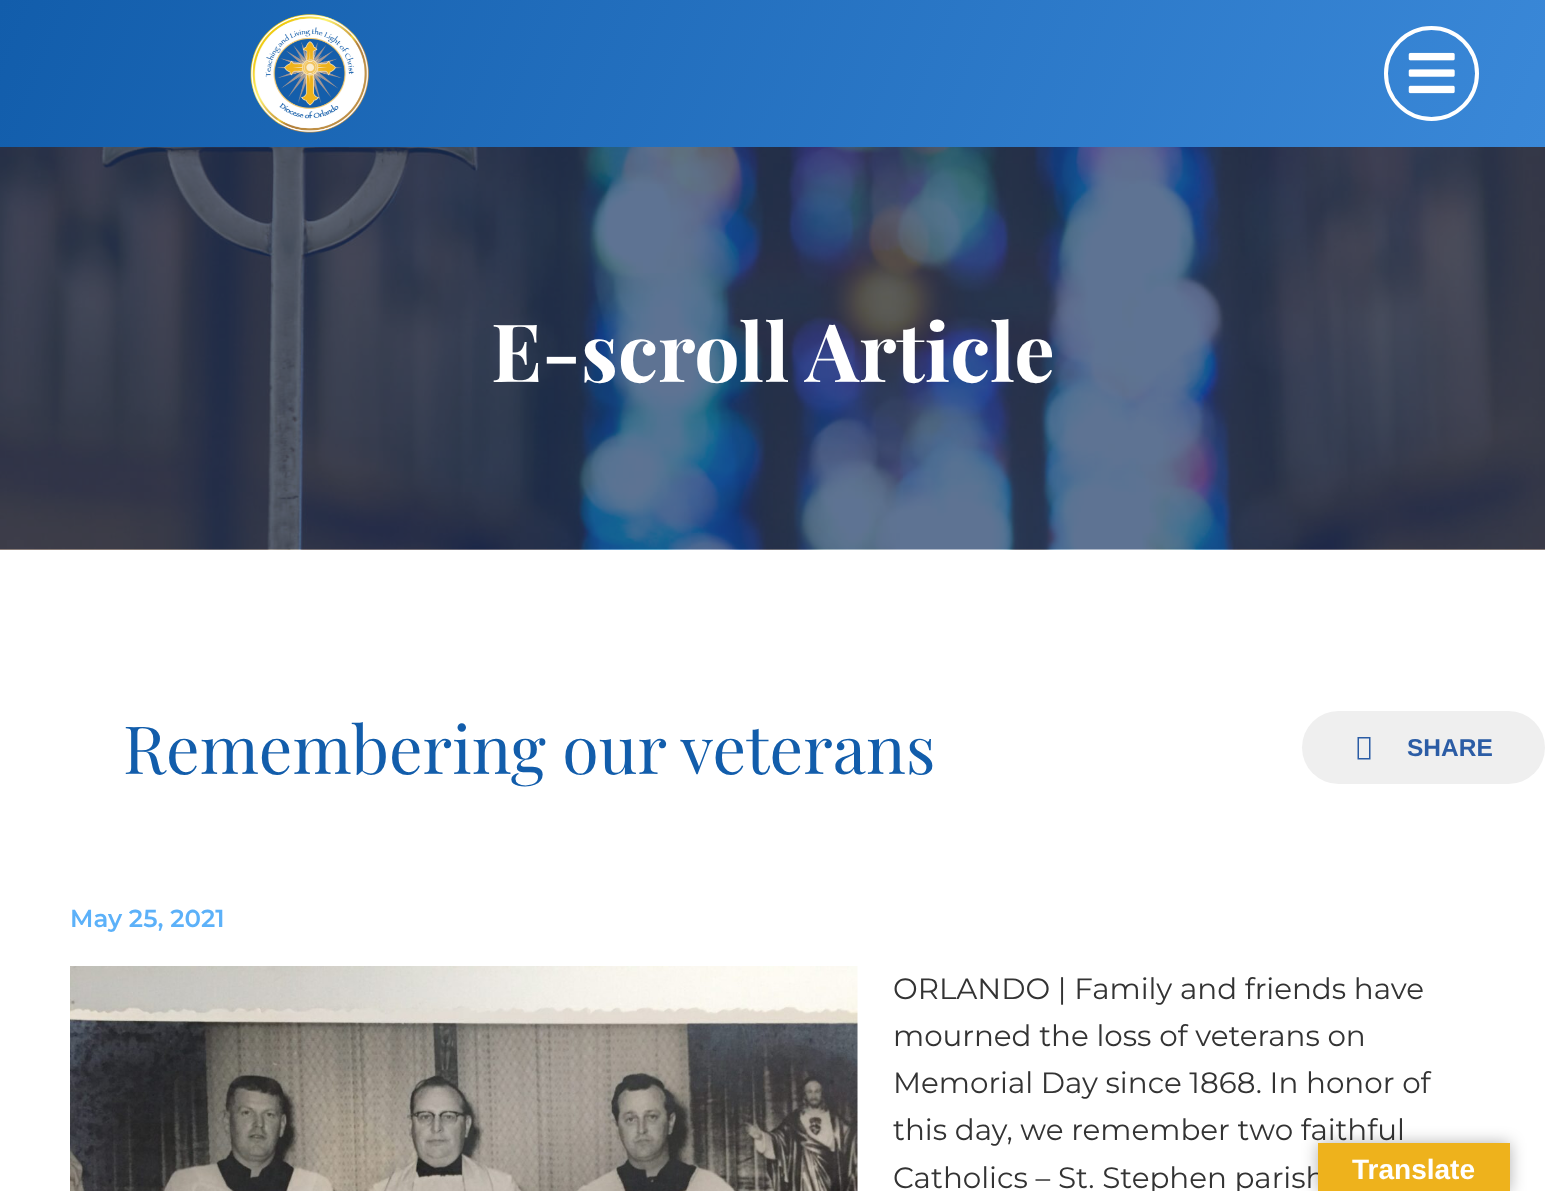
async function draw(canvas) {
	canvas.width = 1545;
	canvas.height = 1191;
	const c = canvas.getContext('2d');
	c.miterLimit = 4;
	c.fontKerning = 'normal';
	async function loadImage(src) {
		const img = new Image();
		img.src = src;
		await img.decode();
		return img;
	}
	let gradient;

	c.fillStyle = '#fff';
	c.fillRect(0, 0, 1545, 1191);
	gradient = c.createLinearGradient(83, -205, 1462, 352);
	gradient.addColorStop(0, '#125dab');
	gradient.addColorStop(1, '#3a88d8');
	c.fillStyle = gradient;
	c.fillRect(0, 0, 1545, 147);
	c.drawImage(await loadImage('img1.png'), 250, 14, 119, 119);
	c.beginPath();
	c.arc(1431.5, 73.5, 45.5, 0, 2 * Math.PI);
	c.strokeStyle = '#fff';
	c.lineWidth = 4;
	c.stroke();
	c.drawImage(await loadImage('img2.png'), 1408, 52, 47, 42);
	c.drawImage(await loadImage('img3.png'), 0, 147, 1545, 403);
	c.font = 'bold 80.5px Playfair Display';
	c.fillStyle = '#fff';
	c.fillText('E-scroll Article', 491, 382);
	c.font = '66.5px Playfair Display';
	c.fillStyle = '#125dab';
	c.fillText('Remembering our veterans', 123, 774);
	c.fillStyle = '#efefef';
	c.beginPath();
	c.roundRect(1302, 711, 243, 73, 36.5);
	c.fill();
	c.fillStyle = '#2b5ca5';
	c.beginPath();
	c.moveTo(1357.5, 759.5);
	c.lineTo(1357.5, 737);
	c.lineTo(1370.5, 737);
	c.lineTo(1370.5, 759.5);
	c.closePath();
	c.moveTo(1359, 758);
	c.lineTo(1369, 758);
	c.lineTo(1369, 738.5);
	c.lineTo(1359, 738.5);
	c.closePath();
	c.fill();
	c.font = 'bold 24.5px Liberation Sans';
	c.fillText('SHARE', 1407, 756);
	c.font = '600 24.5px Montserrat';
	c.fillStyle = '#5cb1f9';
	c.fillText('May 25, 2021', 70, 927);
	c.drawImage(await loadImage('img4.png'), 70, 966, 788, 225);
	c.font = '29.4px Montserrat';
	c.fillStyle = '#333';
	for (const [text, x, y] of [
		['ORLANDO | Family and friends have', 893, 999],
		['mourned the loss of veterans on', 893, 1046],
		['Memorial Day since 1868. In honor of', 893, 1093],
		['this day, we remember two faithful', 893, 1140],
		['Catholics – St. Stephen parish', 893, 1188],
	]) {
		c.fillText(text, x, y);
	}
	c.fillStyle = '#0000004d';
	c.filter = 'blur(8px)';
	c.beginPath();
	c.rect(1318, 1143, 192, 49);
	c.fill();
	c.filter = 'none';
	c.fillStyle = '#eeb21c';
	c.fillRect(1318, 1143, 192, 48);
	c.font = 'bold 28px Liberation Sans';
	c.fillStyle = '#fff';
	c.fillText('Translate', 1352, 1179);
}

draw(document.querySelector('canvas'));
